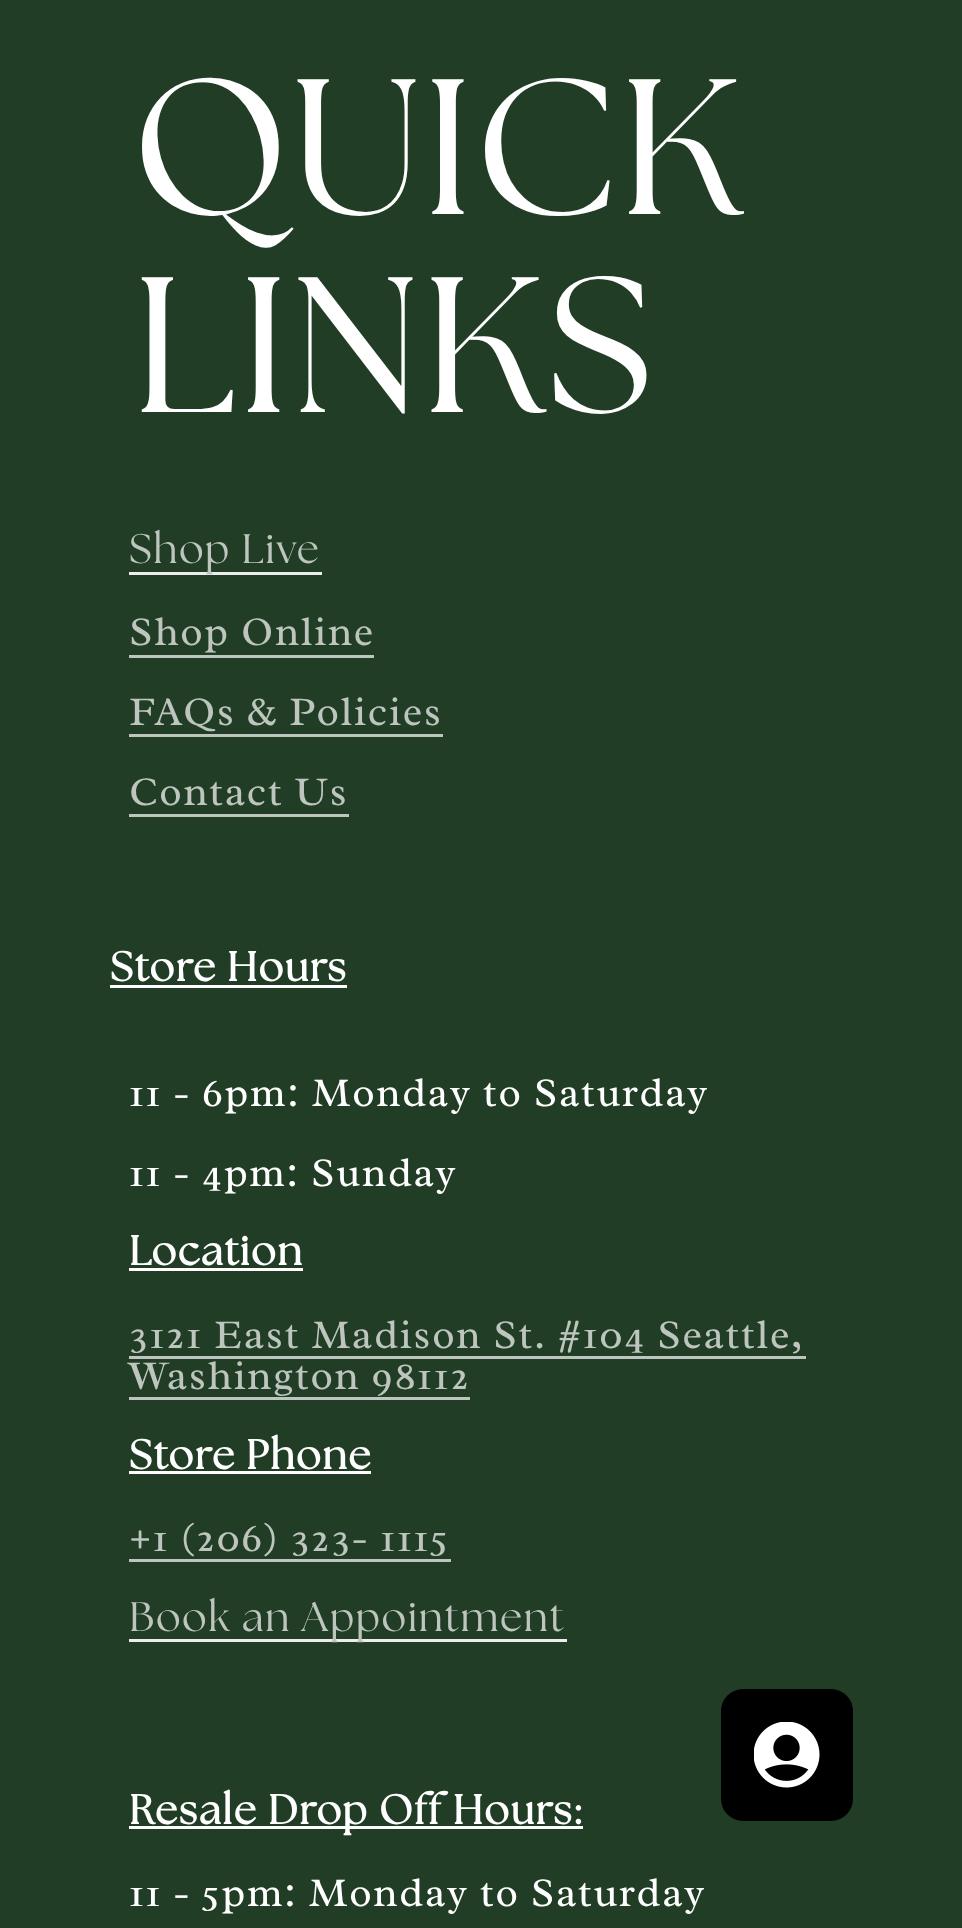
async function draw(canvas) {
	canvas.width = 962;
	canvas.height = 1928;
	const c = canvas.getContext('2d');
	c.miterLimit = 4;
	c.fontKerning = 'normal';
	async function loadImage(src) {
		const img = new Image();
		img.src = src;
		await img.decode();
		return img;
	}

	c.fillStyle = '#213d25';
	c.fillRect(0, 0, 962, 1928);
	c.letterSpacing = '1.65px';
	c.font = '192.5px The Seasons';
	c.fillStyle = '#fff';
	c.fillText('QUICK', 132, 214);
	c.fillText('LINKS', 132, 412);
	c.fillStyle = '#ebeeec';
	c.fillRect(129, 572, 193, 3);
	c.font = '41.25px The Seasons';
	c.fillStyle = '#bdc5be';
	c.fillText('Shop Live', 129, 563);
	c.font = '41.25px Radley';
	c.fillText('Shop Online', 129, 645);
	c.fillStyle = '#bcc5be';
	c.fillRect(129, 655, 245, 3);
	c.fillStyle = '#bdc5be';
	c.fillText('FAQs & Policies', 129, 725);
	c.fillStyle = '#bcc5be';
	c.fillRect(129, 734, 314, 3);
	c.fillStyle = '#bdc5be';
	c.fillText('Contact Us', 129, 805);
	c.fillStyle = '#bcc5be';
	c.fillRect(129, 814, 220, 3);
	c.font = 'bold 41.25px The Seasons';
	c.fillStyle = '#fff';
	c.fillText('Store Hours', 110, 981);
	c.fillRect(110, 985, 237, 3);
	c.font = '41.25px Radley';
	c.fillText('11 - 6pm: Monday to Saturday', 129, 1106);
	c.fillText('11 - 4pm: Sunday', 129, 1186);
	c.font = 'bold 41.25px The Seasons';
	c.fillText('Location', 129, 1265);
	c.fillRect(129, 1268, 174, 3);
	c.font = '41.25px Radley';
	c.fillStyle = '#bdc5be';
	c.fillText('3121 East Madison St. #104 Seattle,', 129, 1348);
	c.fillStyle = '#bcc5be';
	c.fillRect(129, 1356, 677, 3);
	c.fillStyle = '#bdc5be';
	c.fillText('Washington 98112', 129, 1389);
	c.fillStyle = '#bcc5be';
	c.fillRect(129, 1397, 341, 3);
	c.font = 'bold 41.25px The Seasons';
	c.fillStyle = '#fff';
	c.fillText('Store Phone', 129, 1469);
	c.fillRect(129, 1471, 242, 3);
	c.font = '41.25px Radley';
	c.fillStyle = '#bdc5be';
	c.fillText('+1 (206) 323- 1115', 129, 1551);
	c.fillStyle = '#bcc5be';
	c.fillRect(129, 1559, 322, 3);
	c.fillStyle = '#ebeeec';
	c.fillRect(129, 1639, 438, 3);
	c.font = '41.25px The Seasons';
	c.fillStyle = '#bdc5be';
	c.fillText('Book an Appointment', 129, 1631);
	c.fillStyle = '#fff';
	c.fillRect(129, 1826, 454, 3);
	c.font = 'bold 41.25px The Seasons';
	c.fillText('Resale Drop Off Hours:', 129, 1824);
	c.font = '41.25px Radley';
	c.fillText('11 - 5pm: Monday to Saturday', 129, 1906);
	c.fillStyle = '#000';
	c.beginPath();
	c.roundRect(721, 1689, 132, 132, 22);
	c.fill();
	c.drawImage(await loadImage('img1.png'), 754, 1722, 66, 66);
}

draw(document.querySelector('canvas'));
